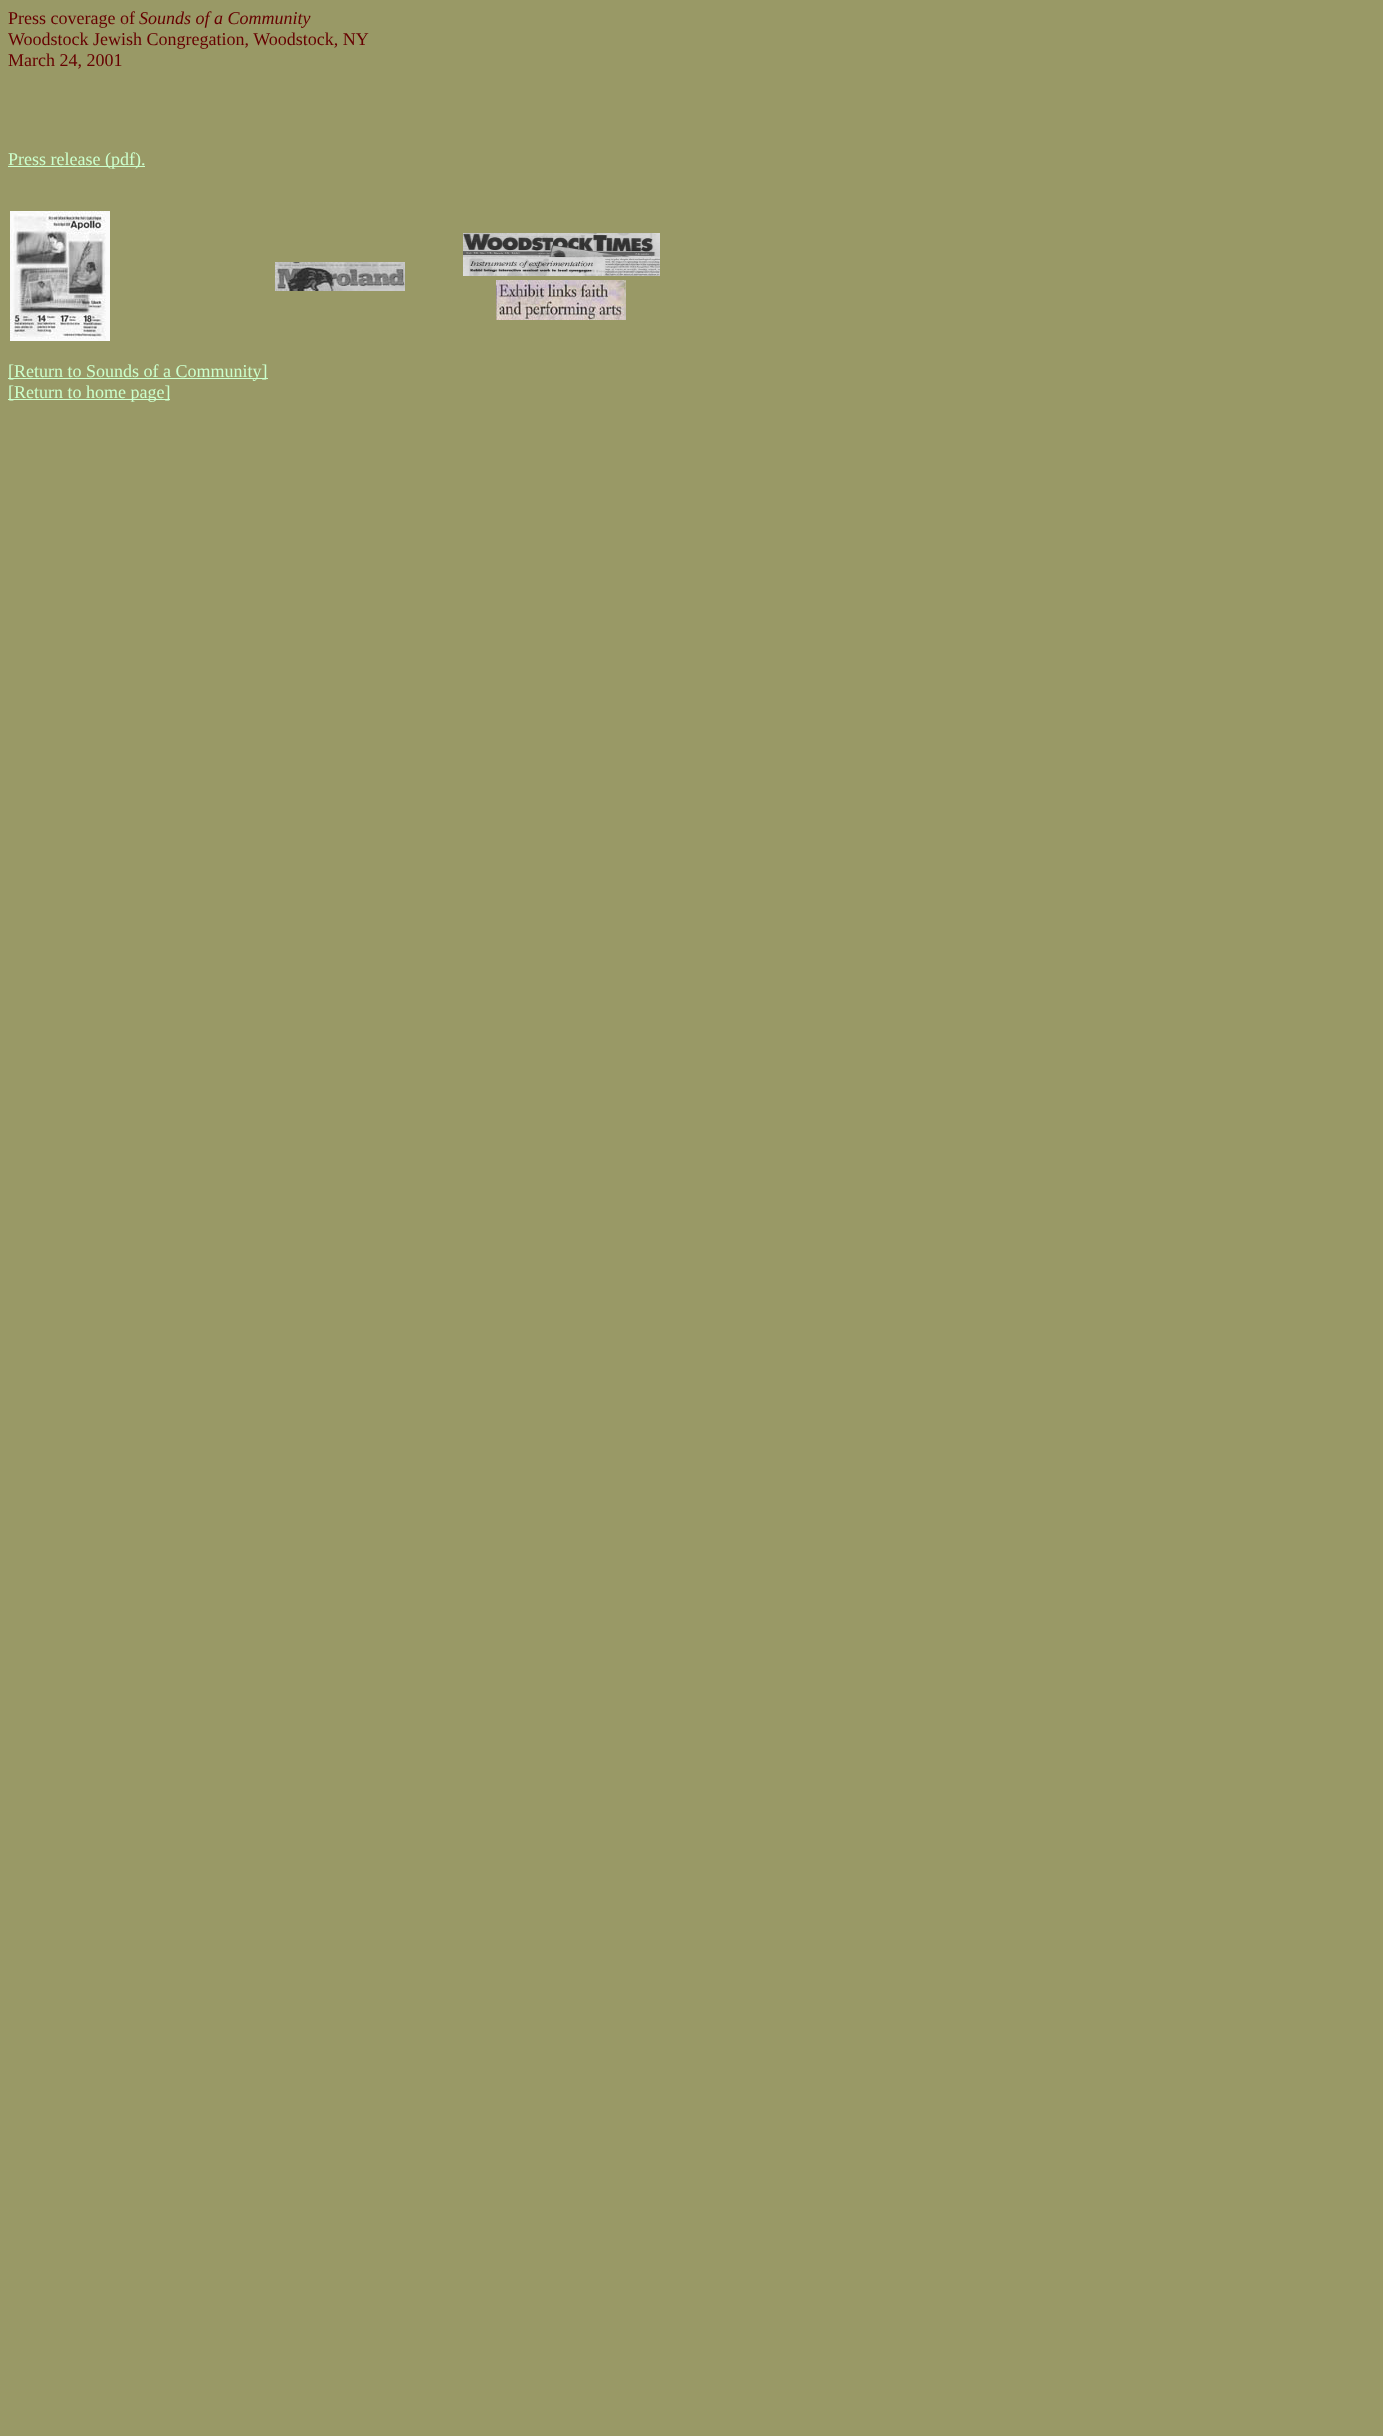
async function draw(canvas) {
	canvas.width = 1383;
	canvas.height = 2436;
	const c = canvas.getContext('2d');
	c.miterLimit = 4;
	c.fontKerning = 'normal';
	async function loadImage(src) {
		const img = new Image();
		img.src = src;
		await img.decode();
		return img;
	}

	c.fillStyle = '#996';
	c.fillRect(0, 0, 1383, 2436);
	c.font = '18px Liberation Serif';
	c.fillStyle = '#600';
	c.fillText('Press coverage of', 8, 24);
	c.font = 'italic 18px Liberation Serif';
	c.fillText('Sounds of a Community', 139, 24);
	c.font = '18px Liberation Serif';
	c.fillText('Woodstock Jewish Congregation, Woodstock, NY', 8, 45);
	c.fillText('March 24, 2001', 8, 66);
	c.fillStyle = '#cfc';
	c.fillRect(8, 166, 137, 1);
	c.fillText('Press release (pdf).', 8, 165);
	c.drawImage(await loadImage('img1.png'), 10, 211, 100, 130);
	c.drawImage(await loadImage('img2.png'), 275, 262, 130, 29);
	c.drawImage(await loadImage('img3.png'), 463, 233, 197, 43);
	c.drawImage(await loadImage('img4.png'), 496, 280, 130, 40);
	c.fillRect(8, 378, 260, 1);
	c.fillText('[Return to Sounds of a Community]', 8, 377);
	c.fillRect(8, 399, 162, 1);
	c.fillText('[Return to home page]', 8, 398);
}

draw(document.querySelector('canvas'));
